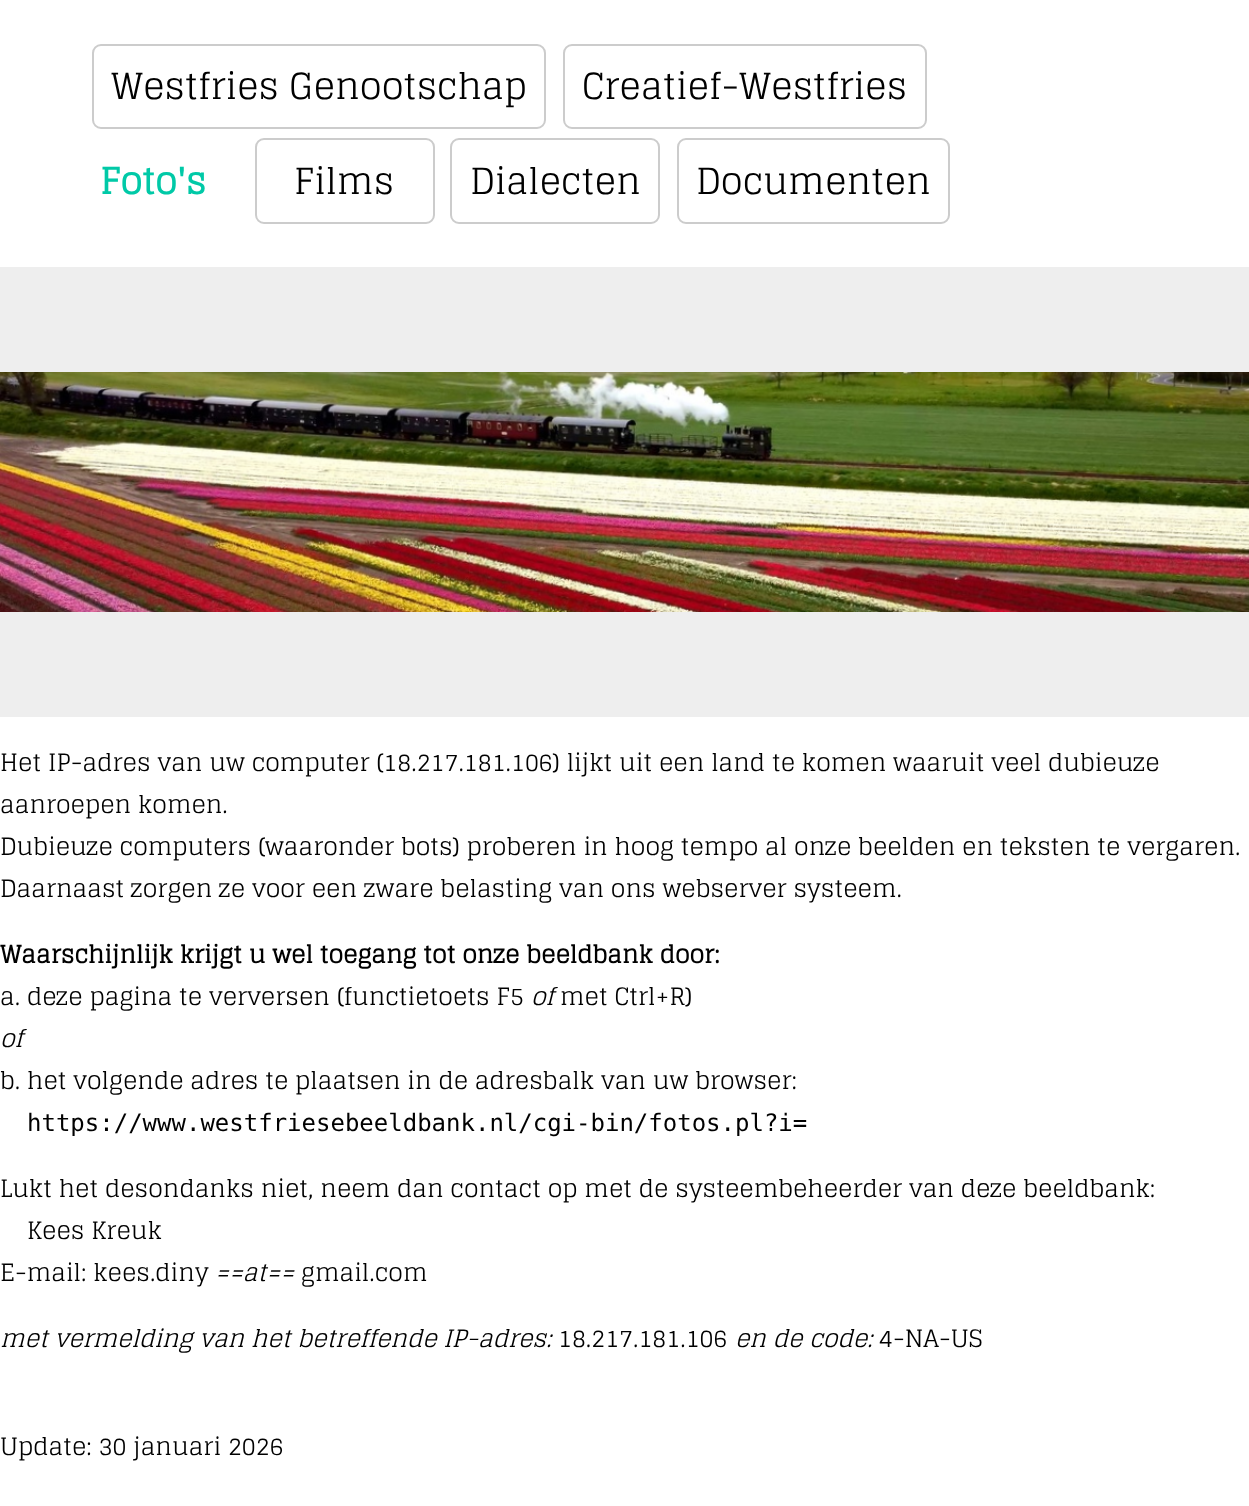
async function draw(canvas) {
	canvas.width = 1249;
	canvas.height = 1506;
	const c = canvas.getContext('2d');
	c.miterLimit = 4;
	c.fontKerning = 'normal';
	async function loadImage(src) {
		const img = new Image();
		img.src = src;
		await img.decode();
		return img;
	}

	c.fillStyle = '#fff';
	c.fillRect(0, 0, 1249, 1506);
	c.beginPath();
	c.roundRect(93, 45, 452, 83, 8);
	c.strokeStyle = '#ccc';
	c.lineWidth = 2;
	c.stroke();
	c.font = '36px Glegoo';
	c.fillStyle = '#000';
	c.fillText('Westfries Genootschap', 111, 99);
	c.beginPath();
	c.roundRect(564, 45, 362, 83, 8);
	c.stroke();
	c.fillText('Creatief-Westfries', 582, 99);
	c.font = 'bold 36px Glegoo';
	c.fillStyle = '#00c9a7';
	c.fillText('Foto\'s', 100, 194);
	c.beginPath();
	c.roundRect(256, 139, 178, 84, 8);
	c.stroke();
	c.font = '36px Glegoo';
	c.fillStyle = '#000';
	c.fillText('Films', 294, 194);
	c.beginPath();
	c.roundRect(451, 139, 208, 84, 8);
	c.stroke();
	c.fillText('Dialecten', 470, 194);
	c.beginPath();
	c.roundRect(678, 139, 271, 84, 8);
	c.stroke();
	c.fillText('Documenten', 696, 194);
	c.fillStyle = '#eee';
	c.fillRect(0, 267, 1249, 450);
	c.drawImage(await loadImage('img1.png'), 0, 372, 1249, 240);
	c.font = '24px Glegoo';
	c.fillStyle = '#000';
	for (const [text, x, y] of [
		['Het IP-adres van uw computer (18.217.181.106) lijkt uit een land te komen waaruit veel dubieuze', 0, 771],
		['aanroepen komen.', 0, 813],
		['Dubieuze computers (waaronder bots) proberen in hoog tempo al onze beelden en teksten te vergaren.', 0, 855],
		['Daarnaast zorgen ze voor een zware belasting van ons webserver systeem.', 0, 897],
	]) {
		c.fillText(text, x, y);
	}
	c.font = 'bold 24px Glegoo';
	c.fillText('Waarschijnlijk krijgt u wel toegang tot onze beeldbank door:', 0, 963);
	c.font = '24px Glegoo';
	c.fillText('a. deze pagina te verversen (functietoets F5', 0, 1005);
	c.font = 'italic 24px Glegoo';
	c.fillText('of', 531, 1005);
	c.font = '24px Glegoo';
	c.fillText('met Ctrl+R)', 560, 1005);
	c.font = 'italic 24px Glegoo';
	c.fillText('of', 0, 1047);
	c.font = '24px Glegoo';
	c.fillText('b. het volgende adres te plaatsen in de adresbalk van uw browser:', 0, 1089);
	c.font = '24px DejaVu Sans Mono';
	c.fillText('https://www.westfriesebeeldbank.nl/cgi-bin/fotos.pl?i=', 27, 1131);
	c.font = '24px Glegoo';
	for (const [text, x, y] of [
		['Lukt het desondanks niet, neem dan contact op met de systeembeheerder van deze beeldbank:', 0, 1197],
		['Kees Kreuk', 27, 1239],
		['E-mail: kees.diny', 0, 1281],
	]) {
		c.fillText(text, x, y);
	}
	c.font = 'italic 24px Glegoo';
	c.fillText('==at==', 215, 1281);
	c.font = '24px Glegoo';
	c.fillText('gmail.com', 301, 1281);
	c.font = 'italic 24px Glegoo';
	c.fillText('met vermelding van het betreffende IP-adres:', 0, 1347);
	c.font = '24px Glegoo';
	c.fillText('18.217.181.106', 558, 1347);
	c.font = 'italic 24px Glegoo';
	c.fillText('en de code:', 735, 1347);
	c.font = '24px Glegoo';
	c.fillText('4-NA-US', 879, 1347);
	c.fillText('Update: 30 januari 2026', 0, 1455);
}

draw(document.querySelector('canvas'));
